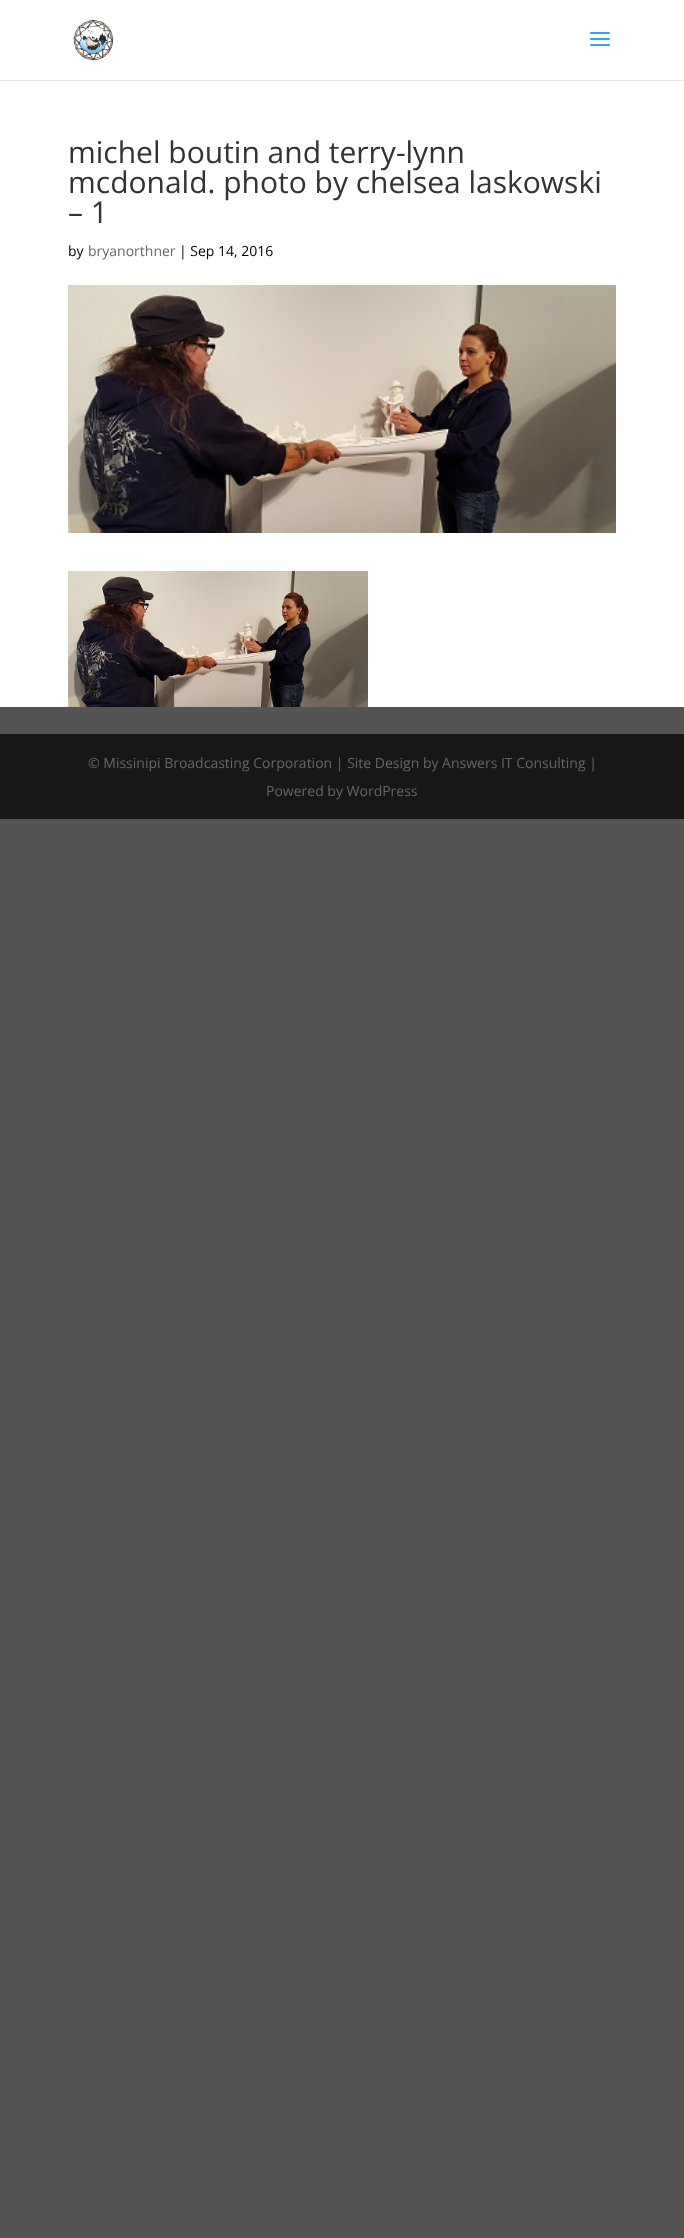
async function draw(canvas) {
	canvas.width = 684;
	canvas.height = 2238;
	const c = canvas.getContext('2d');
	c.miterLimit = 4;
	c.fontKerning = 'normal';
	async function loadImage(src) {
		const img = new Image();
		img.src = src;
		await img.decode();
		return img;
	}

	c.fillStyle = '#545454';
	c.fillRect(0, 0, 684, 2238);
	c.fillStyle = '#e6e6e6';
	c.fillRect(0, 80, 684, 1);
	c.fillStyle = '#fff';
	c.fillRect(0, 0, 684, 80);
	c.drawImage(await loadImage('img1.png'), 73, 19, 41, 42);
	c.drawImage(await loadImage('img2.png'), 590, 32, 20, 14);
	c.fillRect(0, 81, 684, 626);
	c.font = '30px Open Sans';
	c.fillStyle = '#333';
	for (const [text, x, y] of [
		['michel boutin and terry-lynn', 68, 163],
		['mcdonald. photo by chelsea laskowski', 68, 193],
		['– 1', 68, 223],
	]) {
		c.fillText(text, x, y);
	}
	c.font = '14px Open Sans';
	c.fillStyle = '#000';
	c.fillText('by', 68, 256);
	c.fillStyle = '#666';
	c.fillText('bryanorthner', 88, 256);
	c.fillStyle = '#000';
	c.fillText('| Sep 14, 2016', 179, 256);
	c.drawImage(await loadImage('img3.png'), 68, 285, 548, 248);
	c.drawImage(await loadImage('img4.png'), 68, 571, 300, 136);
	c.fillStyle = '#171717';
	c.fillRect(0, 734, 684, 85);
	c.fillStyle = '#666';
	c.fillText('© Missinipi Broadcasting Corporation | Site Design by Answers IT Consulting |', 88, 768);
	c.fillText('Powered by WordPress', 266, 796);
}

draw(document.querySelector('canvas'));
